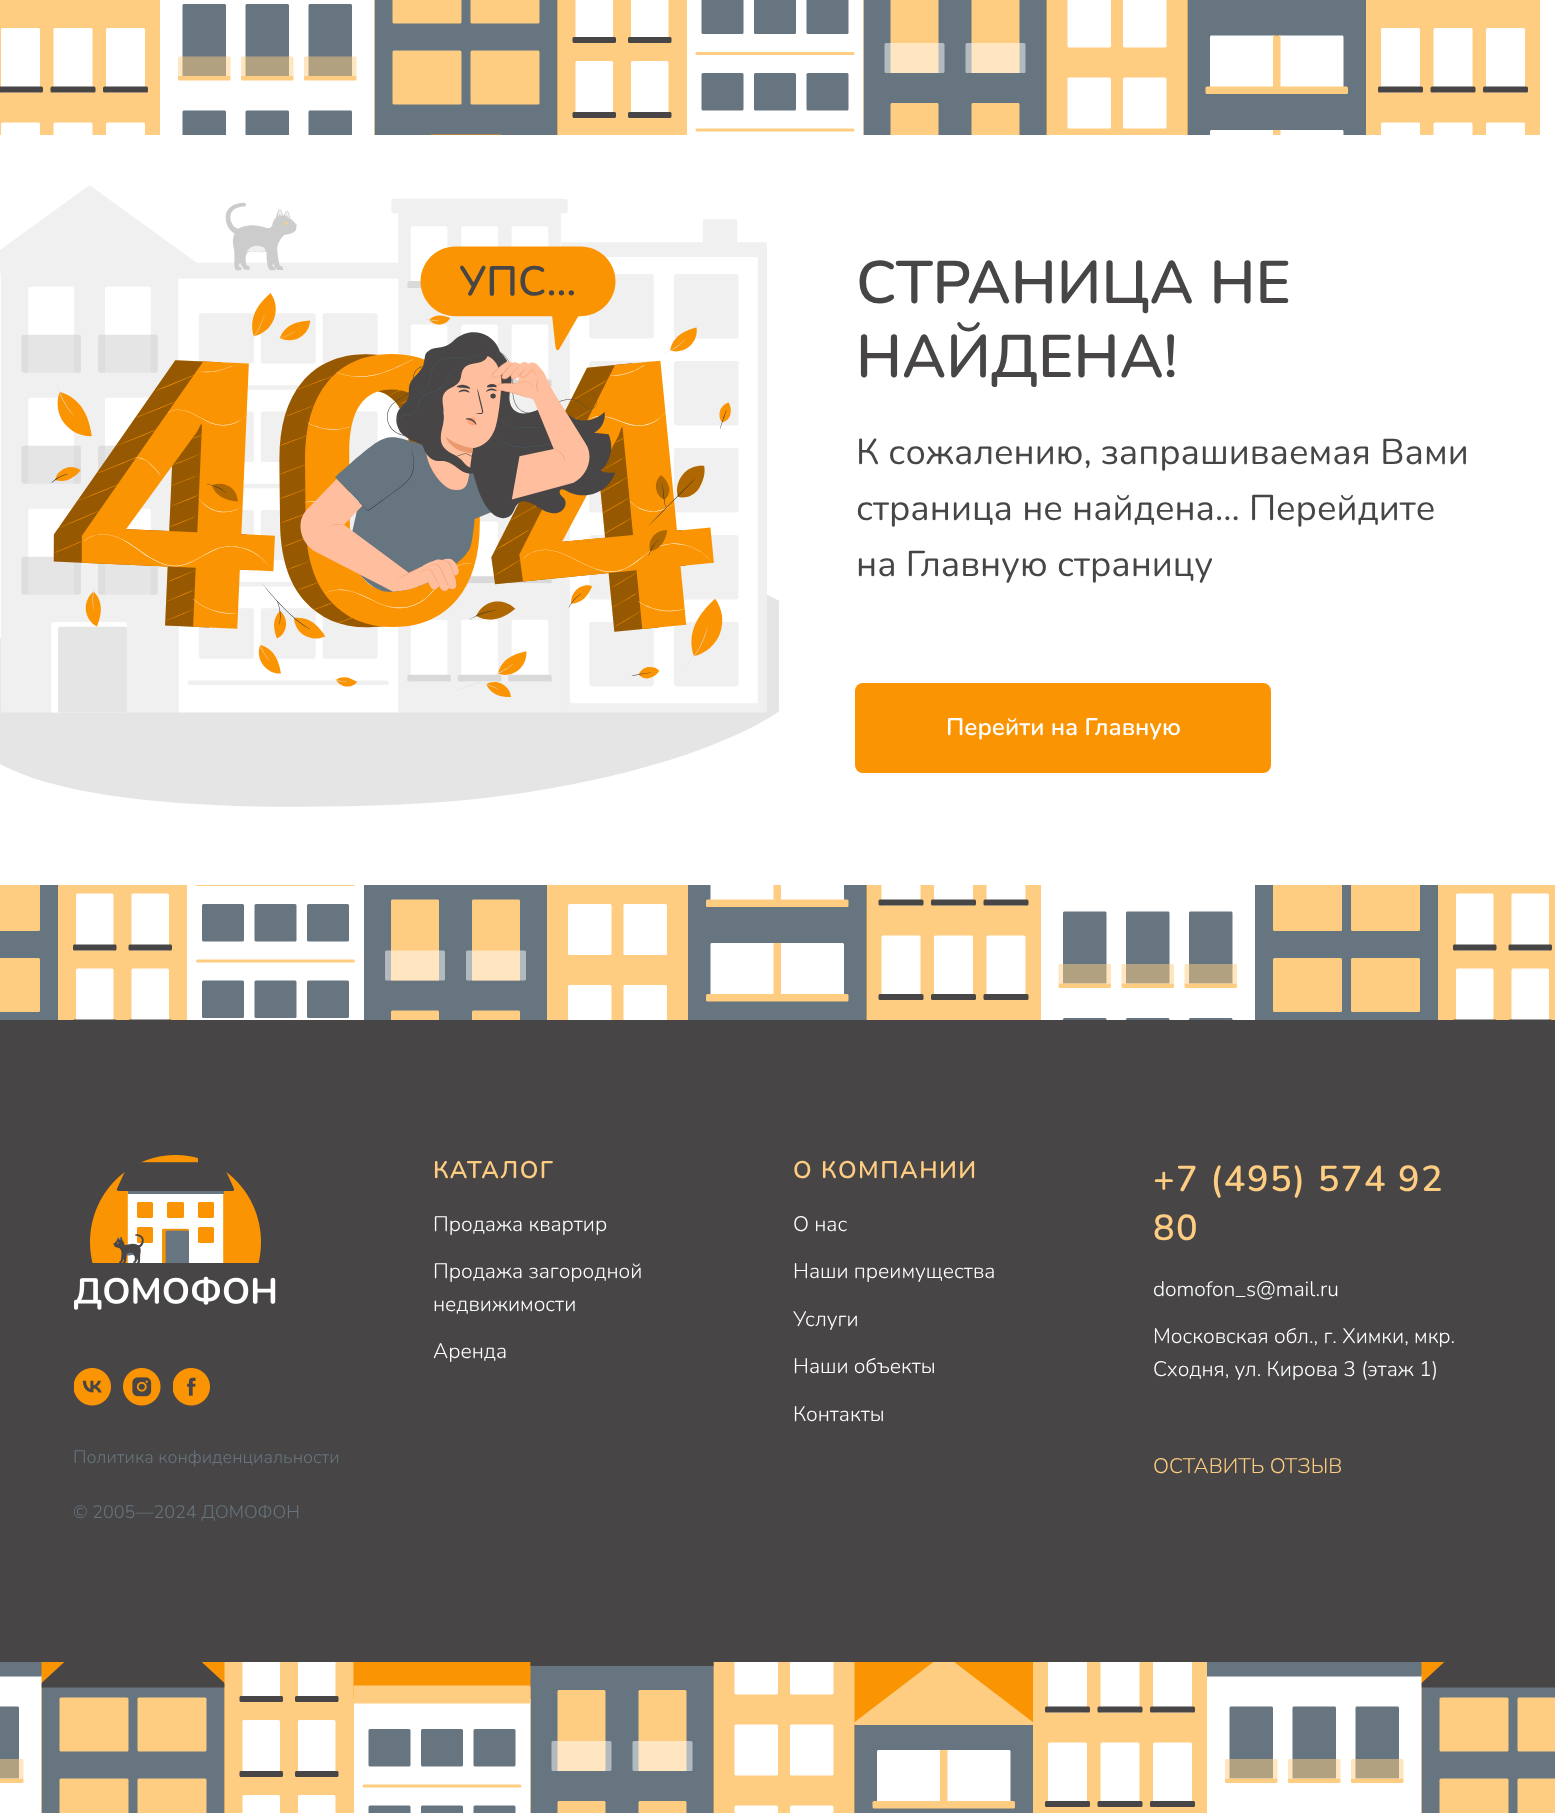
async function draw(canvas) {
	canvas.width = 1555;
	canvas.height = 1813;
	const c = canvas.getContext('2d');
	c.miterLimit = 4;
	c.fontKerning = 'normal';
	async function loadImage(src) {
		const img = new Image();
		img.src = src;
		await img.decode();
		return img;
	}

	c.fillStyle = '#fff';
	c.fillRect(0, 0, 1555, 1813);
	c.drawImage(await loadImage('img1.png'), 0, 0, 1555, 1813);
	c.fillRect(0, 135, 1555, 750);
	c.drawImage(await loadImage('img2.png'), 0, 185, 779, 622);
	c.font = '600 60px Nunito';
	c.fillStyle = '#474545';
	c.fillText('СТРАНИЦА НЕ', 856, 303);
	c.fillText('НАЙДЕНА!', 856, 377);
	c.font = '36px Nunito';
	for (const [text, x, y] of [
		['К сожалению, запрашиваемая Вами', 856, 464],
		['страница не найдена... Перейдите', 856, 520],
		['на Главную страницу', 856, 576],
	]) {
		c.fillText(text, x, y);
	}
	c.fillStyle = '#fb9402';
	c.beginPath();
	c.roundRect(855, 683, 416, 90, 8);
	c.fill();
	c.font = '600 24px Nunito';
	c.fillStyle = '#fff';
	c.fillText('Перейти на Главную', 946, 735);
	c.fillStyle = '#474545';
	c.fillRect(0, 1020, 1555, 642);
	c.letterSpacing = '1.5px';
	c.fillStyle = '#fecd81';
	c.fillText('КАТАЛОГ', 433, 1178);
	c.letterSpacing = '0px';
	c.font = '300 21px Nunito';
	c.fillStyle = '#fff';
	for (const [text, x, y] of [
		['Продажа квартир', 433, 1231],
		['Продажа загородной', 433, 1278],
		['недвижимости', 433, 1311],
		['Аренда', 433, 1358],
	]) {
		c.fillText(text, x, y);
	}
	c.letterSpacing = '1.5px';
	c.font = '600 24px Nunito';
	c.fillStyle = '#fecd81';
	c.fillText('О КОМПАНИИ', 793, 1178);
	c.letterSpacing = '0px';
	c.font = '300 21px Nunito';
	c.fillStyle = '#fff';
	for (const [text, x, y] of [
		['О нас', 793, 1231],
		['Наши преимущества', 793, 1278],
		['Услуги', 793, 1326],
		['Наши объекты', 793, 1373],
		['Контакты', 793, 1421],
	]) {
		c.fillText(text, x, y);
	}
	c.letterSpacing = '1.5px';
	c.font = '600 36px Nunito';
	c.fillStyle = '#fecd81';
	c.fillText('+7 (495) 574 92', 1153, 1191);
	c.fillText('80', 1153, 1240);
	c.letterSpacing = '0px';
	c.font = '300 21px Nunito';
	c.fillStyle = '#fff';
	for (const [text, x, y] of [
		['domofon_s@mail.ru', 1153, 1296],
		['Московская обл., г. Химки, мкр.', 1153, 1343],
		['Сходня, ул. Кирова 3 (этаж 1)', 1153, 1376],
	]) {
		c.fillText(text, x, y);
	}
	c.fillStyle = '#fecd81';
	c.fillText('ОСТАВИТЬ ОТЗЫВ', 1153, 1473);
	c.drawImage(await loadImage('img3.png'), 74, 1155, 202, 155);
	c.drawImage(await loadImage('img4.png'), 74, 1368, 37, 38);
	c.drawImage(await loadImage('img5.png'), 123, 1368, 38, 38);
	c.drawImage(await loadImage('img6.png'), 173, 1368, 37, 38);
	c.font = '300 18px Nunito';
	c.fillStyle = '#66757f';
	c.fillText('Политика конфиденциальности', 73, 1463);
	c.fillText('© 2005—2024 ДОМОФОН', 73, 1518);
}

draw(document.querySelector('canvas'));
